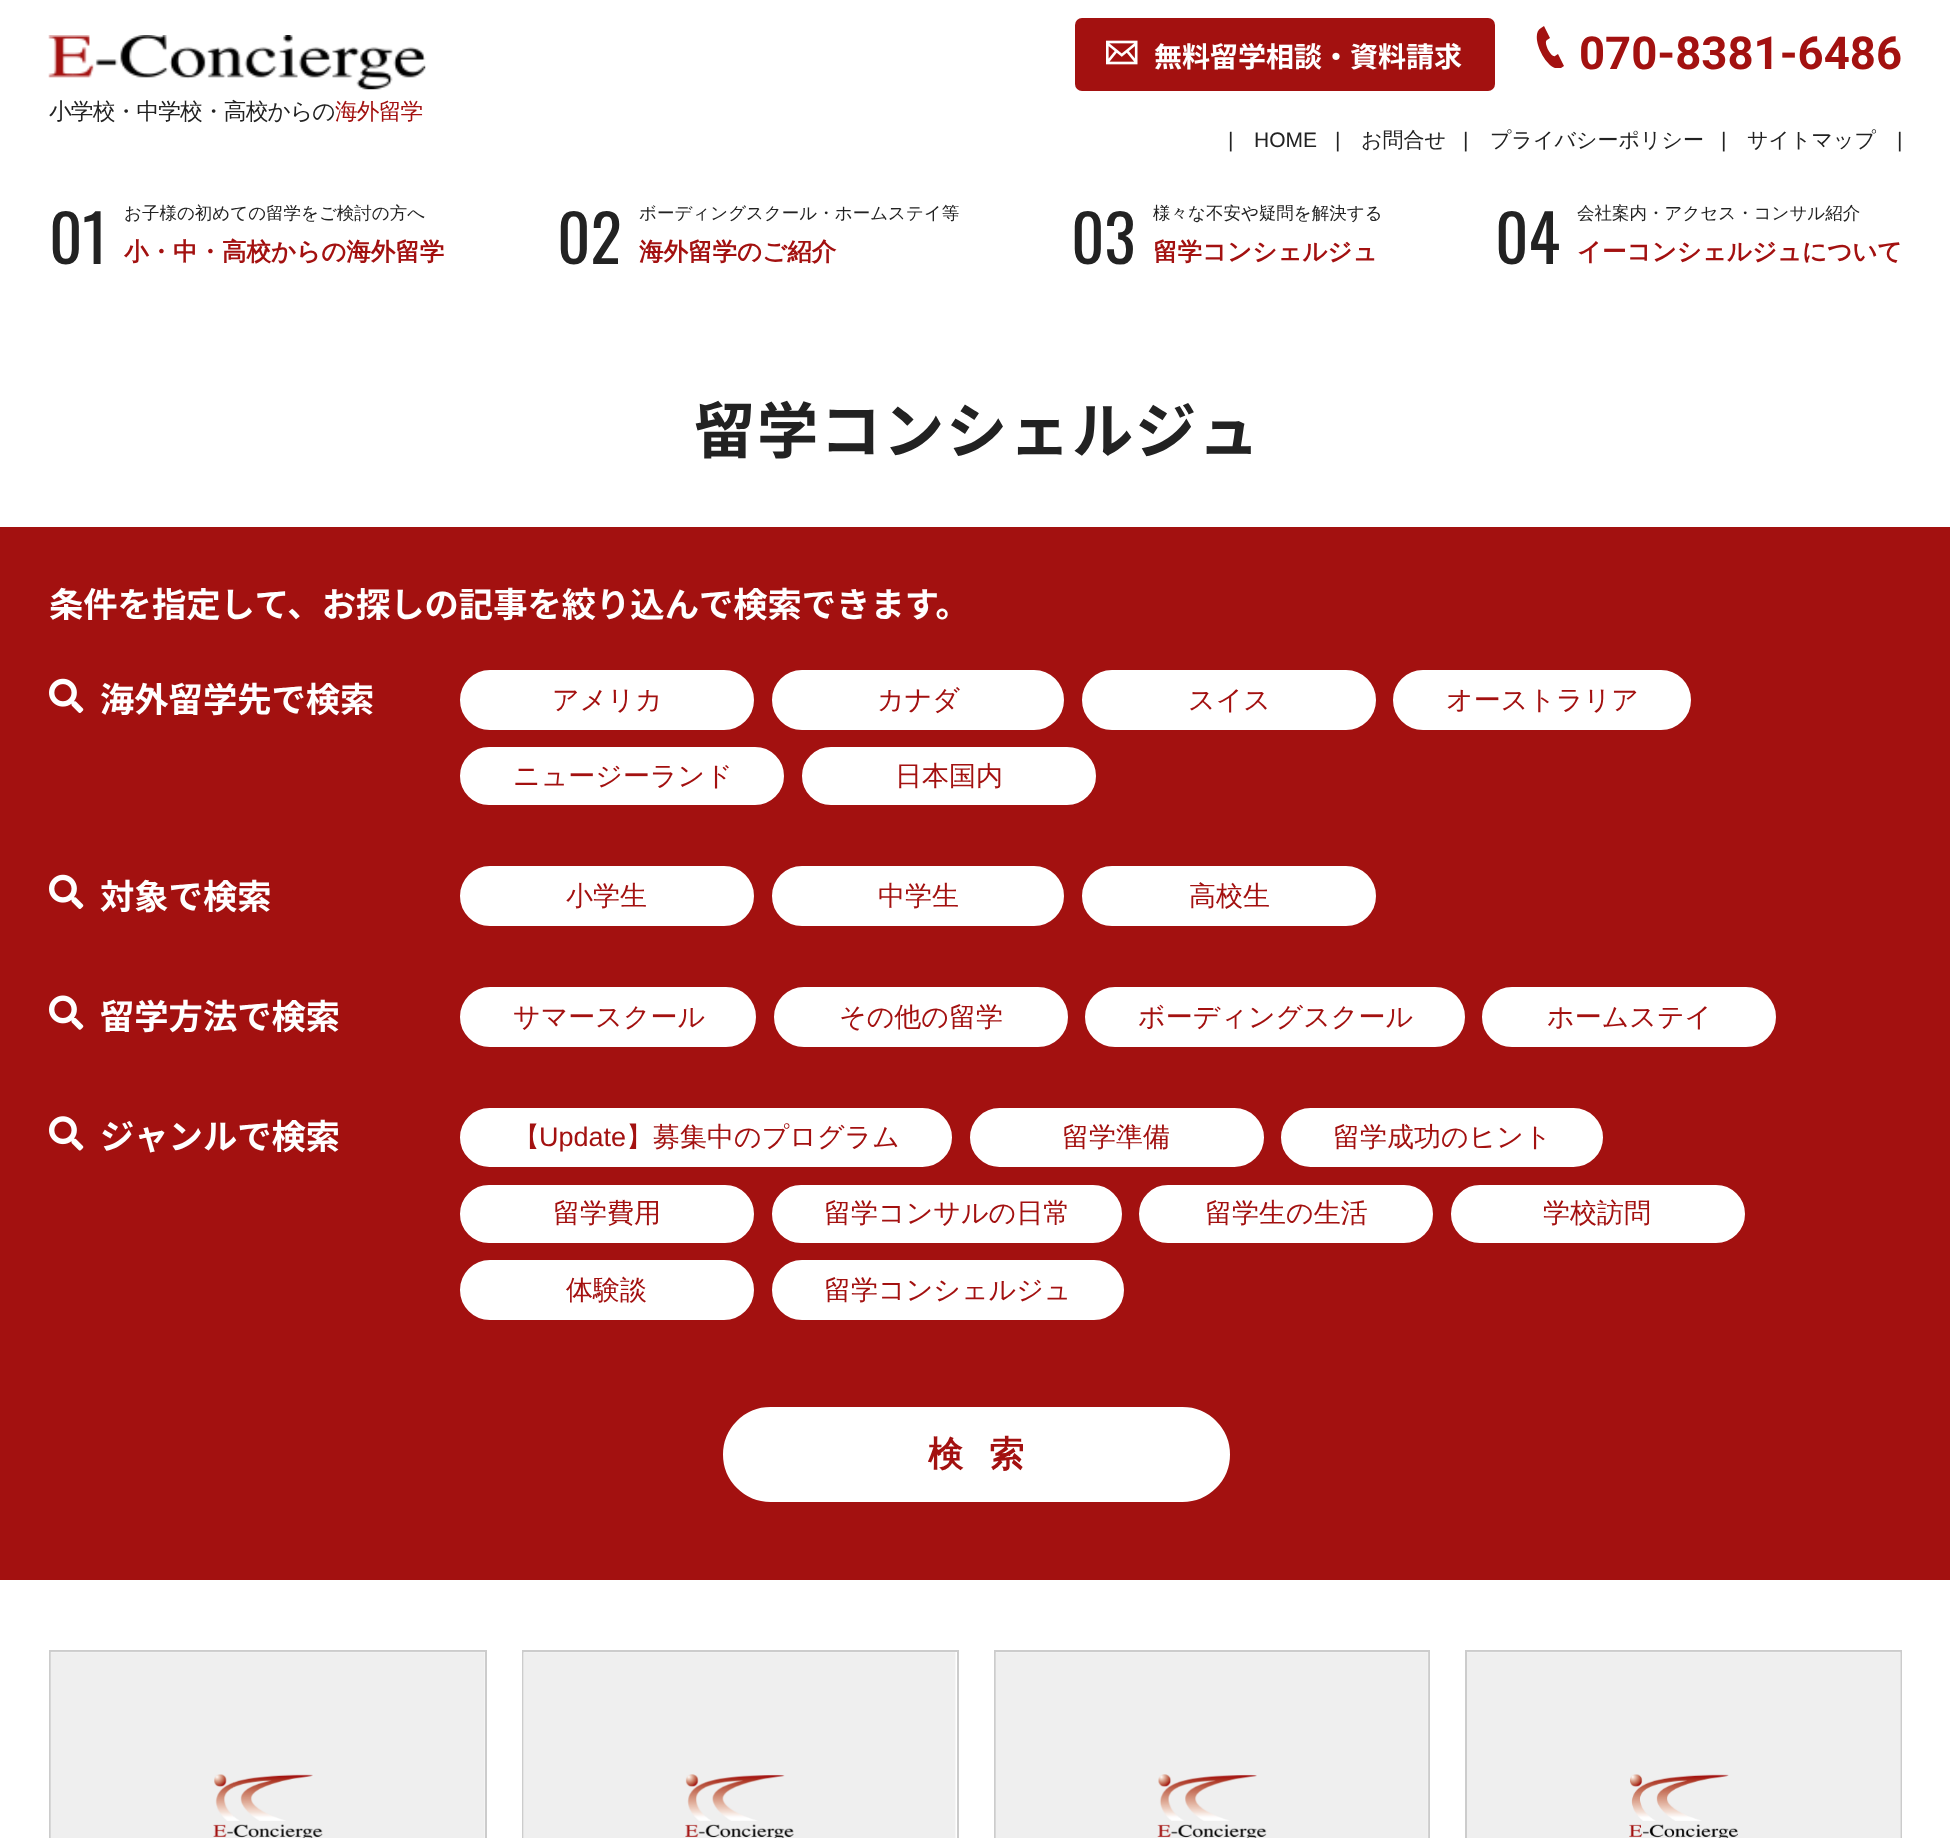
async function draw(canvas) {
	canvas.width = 1950;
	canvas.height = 1838;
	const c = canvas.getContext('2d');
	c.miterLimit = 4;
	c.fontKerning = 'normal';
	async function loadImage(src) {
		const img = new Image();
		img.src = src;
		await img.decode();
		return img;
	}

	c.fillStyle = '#fff';
	c.fillRect(0, 0, 1950, 1838);
	c.fillStyle = '#a31110';
	c.beginPath();
	c.roundRect(1075, 18, 420, 73, 7);
	c.fill();
	c.drawImage(await loadImage('img1.png'), 1106, 40, 32, 25);
	c.font = '100 28px Noto Sans JP';
	c.fillStyle = '#fff';
	c.fillText('無料留学相談・資料請求', 1154, 67);
	c.save();
	c.beginPath();
	c.rect(1530, 26, 42, 42);
	c.clip();
	c.fillStyle = '#a31110';
	c.beginPath();
	c.moveTo(1564, 66);
	c.lineTo(1558, 54);
	c.lineTo(1555, 56);
	c.bezierCurveTo(1551, 58, 1543, 42, 1547, 40);
	c.lineTo(1550, 38);
	c.lineTo(1544, 26);
	c.lineTo(1541, 28);
	c.bezierCurveTo(1528, 35, 1548, 74, 1561, 68);
	c.closePath();
	c.fill();
	c.restore();
	c.font = 'bold 45.5px Roboto';
	c.fillStyle = '#a31110';
	c.fillText('070-8381-6486', 1579, 69);
	c.drawImage(await loadImage('img2.png'), 48, 35, 378, 55);
	c.letterSpacing = '-0.9px';
	c.font = '500 22.75px WenQuanYi Zen Hei';
	c.fillStyle = '#222';
	c.fillText('小学校・中学校・高校からの', 49, 119);
	c.fillStyle = '#a31110';
	c.fillText('海外留学', 335, 119);
	c.letterSpacing = '0px';
	c.font = '21px Liberation Sans';
	c.fillStyle = '#222';
	for (const [text, x, y] of [
		['|', 1228, 147],
		['HOME', 1254, 147],
		['|', 1335, 147],
	]) {
		c.fillText(text, x, y);
	}
	c.font = '500 21px WenQuanYi Zen Hei';
	c.fillText('お問合せ', 1361, 147);
	c.font = '21px Liberation Sans';
	c.fillText('|', 1463, 147);
	c.font = '500 21px WenQuanYi Zen Hei';
	c.fillText('プライバシーポリシー', 1490, 147);
	c.font = '21px Liberation Sans';
	c.fillText('|', 1721, 147);
	c.font = '500 21px WenQuanYi Zen Hei';
	c.fillText('サイトマップ', 1747, 147);
	c.font = '21px Liberation Sans';
	c.fillText('|', 1897, 147);
	c.font = '65px Oswald';
	c.fillText('01', 49, 264);
	c.font = '500 17.5px WenQuanYi Zen Hei';
	c.fillText('お子様の初めての留学をご検討の方へ', 124, 219);
	c.font = 'bold 24.5px WenQuanYi Zen Hei';
	c.fillStyle = '#a31110';
	c.fillText('小・中・高校からの海外留学', 124, 260);
	c.font = '65px Oswald';
	c.fillStyle = '#222';
	c.fillText('02', 557, 264);
	c.font = '500 17.5px WenQuanYi Zen Hei';
	c.fillText('ボーディングスクール・ホームステイ等', 639, 219);
	c.font = 'bold 24.5px WenQuanYi Zen Hei';
	c.fillStyle = '#a31110';
	c.fillText('海外留学のご紹介', 639, 260);
	c.font = '65px Oswald';
	c.fillStyle = '#222';
	c.fillText('03', 1071, 264);
	c.font = '500 17.5px WenQuanYi Zen Hei';
	c.fillText('様々な不安や疑問を解決する', 1153, 219);
	c.font = 'bold 24.5px WenQuanYi Zen Hei';
	c.fillStyle = '#a31110';
	c.fillText('留学コンシェルジュ', 1153, 260);
	c.font = '65px Oswald';
	c.fillStyle = '#222';
	c.fillText('04', 1495, 264);
	c.font = '500 17.5px WenQuanYi Zen Hei';
	c.fillText('会社案内・アクセス・コンサル紹介', 1577, 219);
	c.font = 'bold 24.5px WenQuanYi Zen Hei';
	c.fillStyle = '#a31110';
	c.fillText('イーコンシェルジュについて', 1577, 260);
	c.letterSpacing = '1.75px';
	c.font = '100 61.25px Noto Sans JP';
	c.fillStyle = '#222';
	c.fillText('留学コンシェルジュ', 694, 453);
	c.fillStyle = '#a31110';
	c.fillRect(0, 527, 1950, 1053);
	c.letterSpacing = '0px';
	c.font = '100 34.3px Noto Sans JP';
	c.fillStyle = '#fff';
	c.fillText('条件を指定して、お探しの記事を絞り込んで検索できます。', 49, 617);
	c.drawImage(await loadImage('img3.png'), 49, 678, 35, 35);
	c.fillText('海外留学先で検索', 100, 712);
	c.beginPath();
	c.roundRect(462, 672, 290, 56, 28);
	c.fill();
	c.strokeStyle = '#fff';
	c.lineWidth = 4;
	c.stroke();
	c.font = '500 27px WenQuanYi Zen Hei';
	c.fillStyle = '#a31110';
	c.fillText('アメリカ', 552, 709);
	c.fillStyle = '#fff';
	c.beginPath();
	c.roundRect(774, 672, 288, 56, 28);
	c.fill();
	c.stroke();
	c.fillStyle = '#a31110';
	c.fillText('カナダ', 877, 709);
	c.fillStyle = '#fff';
	c.beginPath();
	c.roundRect(1084, 672, 290, 56, 28);
	c.fill();
	c.stroke();
	c.fillStyle = '#a31110';
	c.fillText('スイス', 1188, 709);
	c.fillStyle = '#fff';
	c.beginPath();
	c.roundRect(1395, 672, 294, 56, 28);
	c.fill();
	c.stroke();
	c.fillStyle = '#a31110';
	c.fillText('オーストラリア', 1446, 709);
	c.fillStyle = '#fff';
	c.beginPath();
	c.roundRect(462, 749, 320, 54, 27);
	c.fill();
	c.stroke();
	c.fillStyle = '#a31110';
	c.fillText('ニュージーランド', 513, 785);
	c.fillStyle = '#fff';
	c.beginPath();
	c.roundRect(804, 749, 290, 54, 27);
	c.fill();
	c.stroke();
	c.fillStyle = '#a31110';
	c.fillText('日本国内', 895, 785);
	c.drawImage(await loadImage('img3.png'), 49, 874, 35, 35);
	c.font = '100 34.3px Noto Sans JP';
	c.fillStyle = '#fff';
	c.fillText('対象で検索', 100, 909);
	c.beginPath();
	c.roundRect(462, 868, 290, 56, 28);
	c.fill();
	c.stroke();
	c.font = '500 27px WenQuanYi Zen Hei';
	c.fillStyle = '#a31110';
	c.fillText('小学生', 566, 905);
	c.fillStyle = '#fff';
	c.beginPath();
	c.roundRect(774, 868, 288, 56, 28);
	c.fill();
	c.stroke();
	c.fillStyle = '#a31110';
	c.fillText('中学生', 878, 905);
	c.fillStyle = '#fff';
	c.beginPath();
	c.roundRect(1084, 868, 290, 56, 28);
	c.fill();
	c.stroke();
	c.fillStyle = '#a31110';
	c.fillText('高校生', 1189, 905);
	c.drawImage(await loadImage('img4.png'), 49, 995, 35, 35);
	c.font = '100 34.3px Noto Sans JP';
	c.fillStyle = '#fff';
	c.fillText('留学方法で検索', 100, 1029);
	c.beginPath();
	c.roundRect(462, 989, 292, 56, 28);
	c.fill();
	c.stroke();
	c.font = '500 27px WenQuanYi Zen Hei';
	c.fillStyle = '#a31110';
	c.fillText('サマースクール', 513, 1026);
	c.fillStyle = '#fff';
	c.beginPath();
	c.roundRect(776, 989, 290, 56, 28);
	c.fill();
	c.stroke();
	c.fillStyle = '#a31110';
	c.fillText('その他の留学', 839, 1026);
	c.fillStyle = '#fff';
	c.beginPath();
	c.roundRect(1087, 989, 376, 56, 28);
	c.fill();
	c.stroke();
	c.fillStyle = '#a31110';
	c.fillText('ボーディングスクール', 1138, 1026);
	c.fillStyle = '#fff';
	c.beginPath();
	c.roundRect(1484, 989, 290, 56, 28);
	c.fill();
	c.stroke();
	c.fillStyle = '#a31110';
	c.fillText('ホームステイ', 1547, 1026);
	c.drawImage(await loadImage('img5.png'), 49, 1116, 35, 35);
	c.font = '100 34.3px Noto Sans JP';
	c.fillStyle = '#fff';
	c.fillText('ジャンルで検索', 100, 1149);
	c.beginPath();
	c.roundRect(462, 1110, 488, 55, 27.5);
	c.fill();
	c.stroke();
	c.font = '500 27px WenQuanYi Zen Hei';
	c.fillStyle = '#a31110';
	c.fillText('【', 513, 1146);
	c.font = '27px Liberation Sans';
	c.fillText('Update', 539, 1146);
	c.font = '500 27px WenQuanYi Zen Hei';
	c.fillText('】募集中のプログラム', 626, 1146);
	c.fillStyle = '#fff';
	c.beginPath();
	c.roundRect(972, 1110, 290, 55, 27.5);
	c.fill();
	c.stroke();
	c.fillStyle = '#a31110';
	c.fillText('留学準備', 1062, 1146);
	c.fillStyle = '#fff';
	c.beginPath();
	c.roundRect(1283, 1110, 318, 55, 27.5);
	c.fill();
	c.stroke();
	c.fillStyle = '#a31110';
	c.fillText('留学成功のヒント', 1333, 1146);
	c.fillStyle = '#fff';
	c.beginPath();
	c.roundRect(462, 1187, 290, 54, 27);
	c.fill();
	c.stroke();
	c.fillStyle = '#a31110';
	c.fillText('留学費用', 553, 1222);
	c.fillStyle = '#fff';
	c.beginPath();
	c.roundRect(774, 1187, 346, 54, 27);
	c.fill();
	c.stroke();
	c.fillStyle = '#a31110';
	c.fillText('留学コンサルの日常', 824, 1222);
	c.fillStyle = '#fff';
	c.beginPath();
	c.roundRect(1141, 1187, 290, 54, 27);
	c.fill();
	c.stroke();
	c.fillStyle = '#a31110';
	c.fillText('留学生の生活', 1205, 1222);
	c.fillStyle = '#fff';
	c.beginPath();
	c.roundRect(1453, 1187, 290, 54, 27);
	c.fill();
	c.stroke();
	c.fillStyle = '#a31110';
	c.fillText('学校訪問', 1543, 1222);
	c.fillStyle = '#fff';
	c.beginPath();
	c.roundRect(462, 1262, 290, 56, 28);
	c.fill();
	c.stroke();
	c.fillStyle = '#a31110';
	c.fillText('体験談', 566, 1299);
	c.fillStyle = '#fff';
	c.beginPath();
	c.roundRect(774, 1262, 348, 56, 28);
	c.fill();
	c.stroke();
	c.fillStyle = '#a31110';
	c.fillText('留学コンシェルジュ', 824, 1299);
	c.fillStyle = '#fff';
	c.beginPath();
	c.roundRect(725, 1409, 503, 91, 45.5);
	c.fill();
	c.stroke();
	c.letterSpacing = '26px';
	c.font = 'bold 35px WenQuanYi Zen Hei';
	c.fillStyle = '#a31110';
	c.fillText('検索', 928, 1466);
	c.strokeStyle = '#ccc';
	c.lineWidth = 2;
	c.strokeRect(50, 1651, 436, 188);
	c.drawImage(await loadImage('img6.png'), 50, 1651, 435, 187);
	c.strokeRect(523, 1651, 435, 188);
	c.drawImage(await loadImage('img7.png'), 523, 1652, 433, 186);
	c.strokeRect(995, 1651, 434, 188);
	c.drawImage(await loadImage('img8.png'), 995, 1652, 434, 186);
	c.strokeRect(1466, 1651, 435, 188);
	c.drawImage(await loadImage('img9.png'), 1467, 1651, 434, 187);
}

draw(document.querySelector('canvas'));
